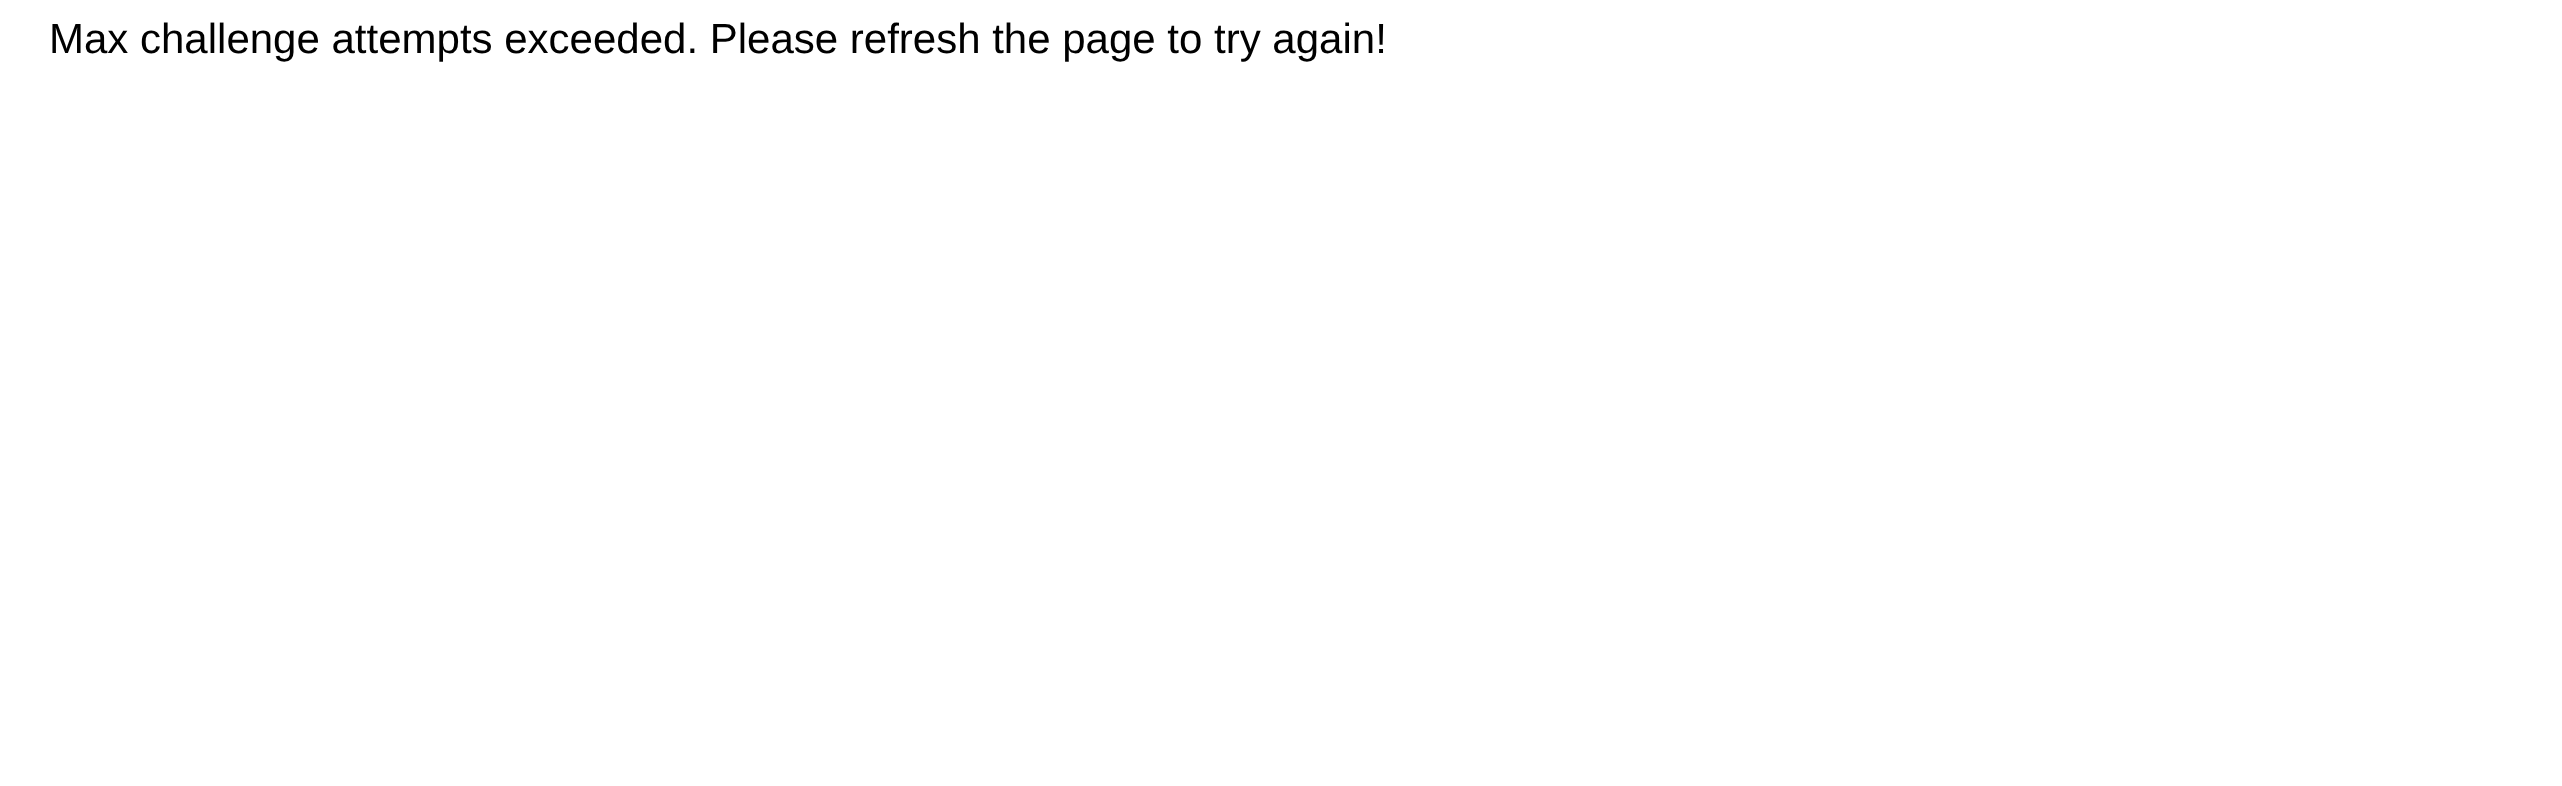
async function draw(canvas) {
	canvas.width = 2562;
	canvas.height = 786;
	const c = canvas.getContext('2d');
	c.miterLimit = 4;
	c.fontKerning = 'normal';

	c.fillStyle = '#fff';
	c.fillRect(0, 0, 2562, 786);
	c.font = '42px Liberation Sans';
	c.fillStyle = '#000';
	c.fillText('Max challenge attempts exceeded. Please refresh the page to try again!', 49, 53);
}

draw(document.querySelector('canvas'));
